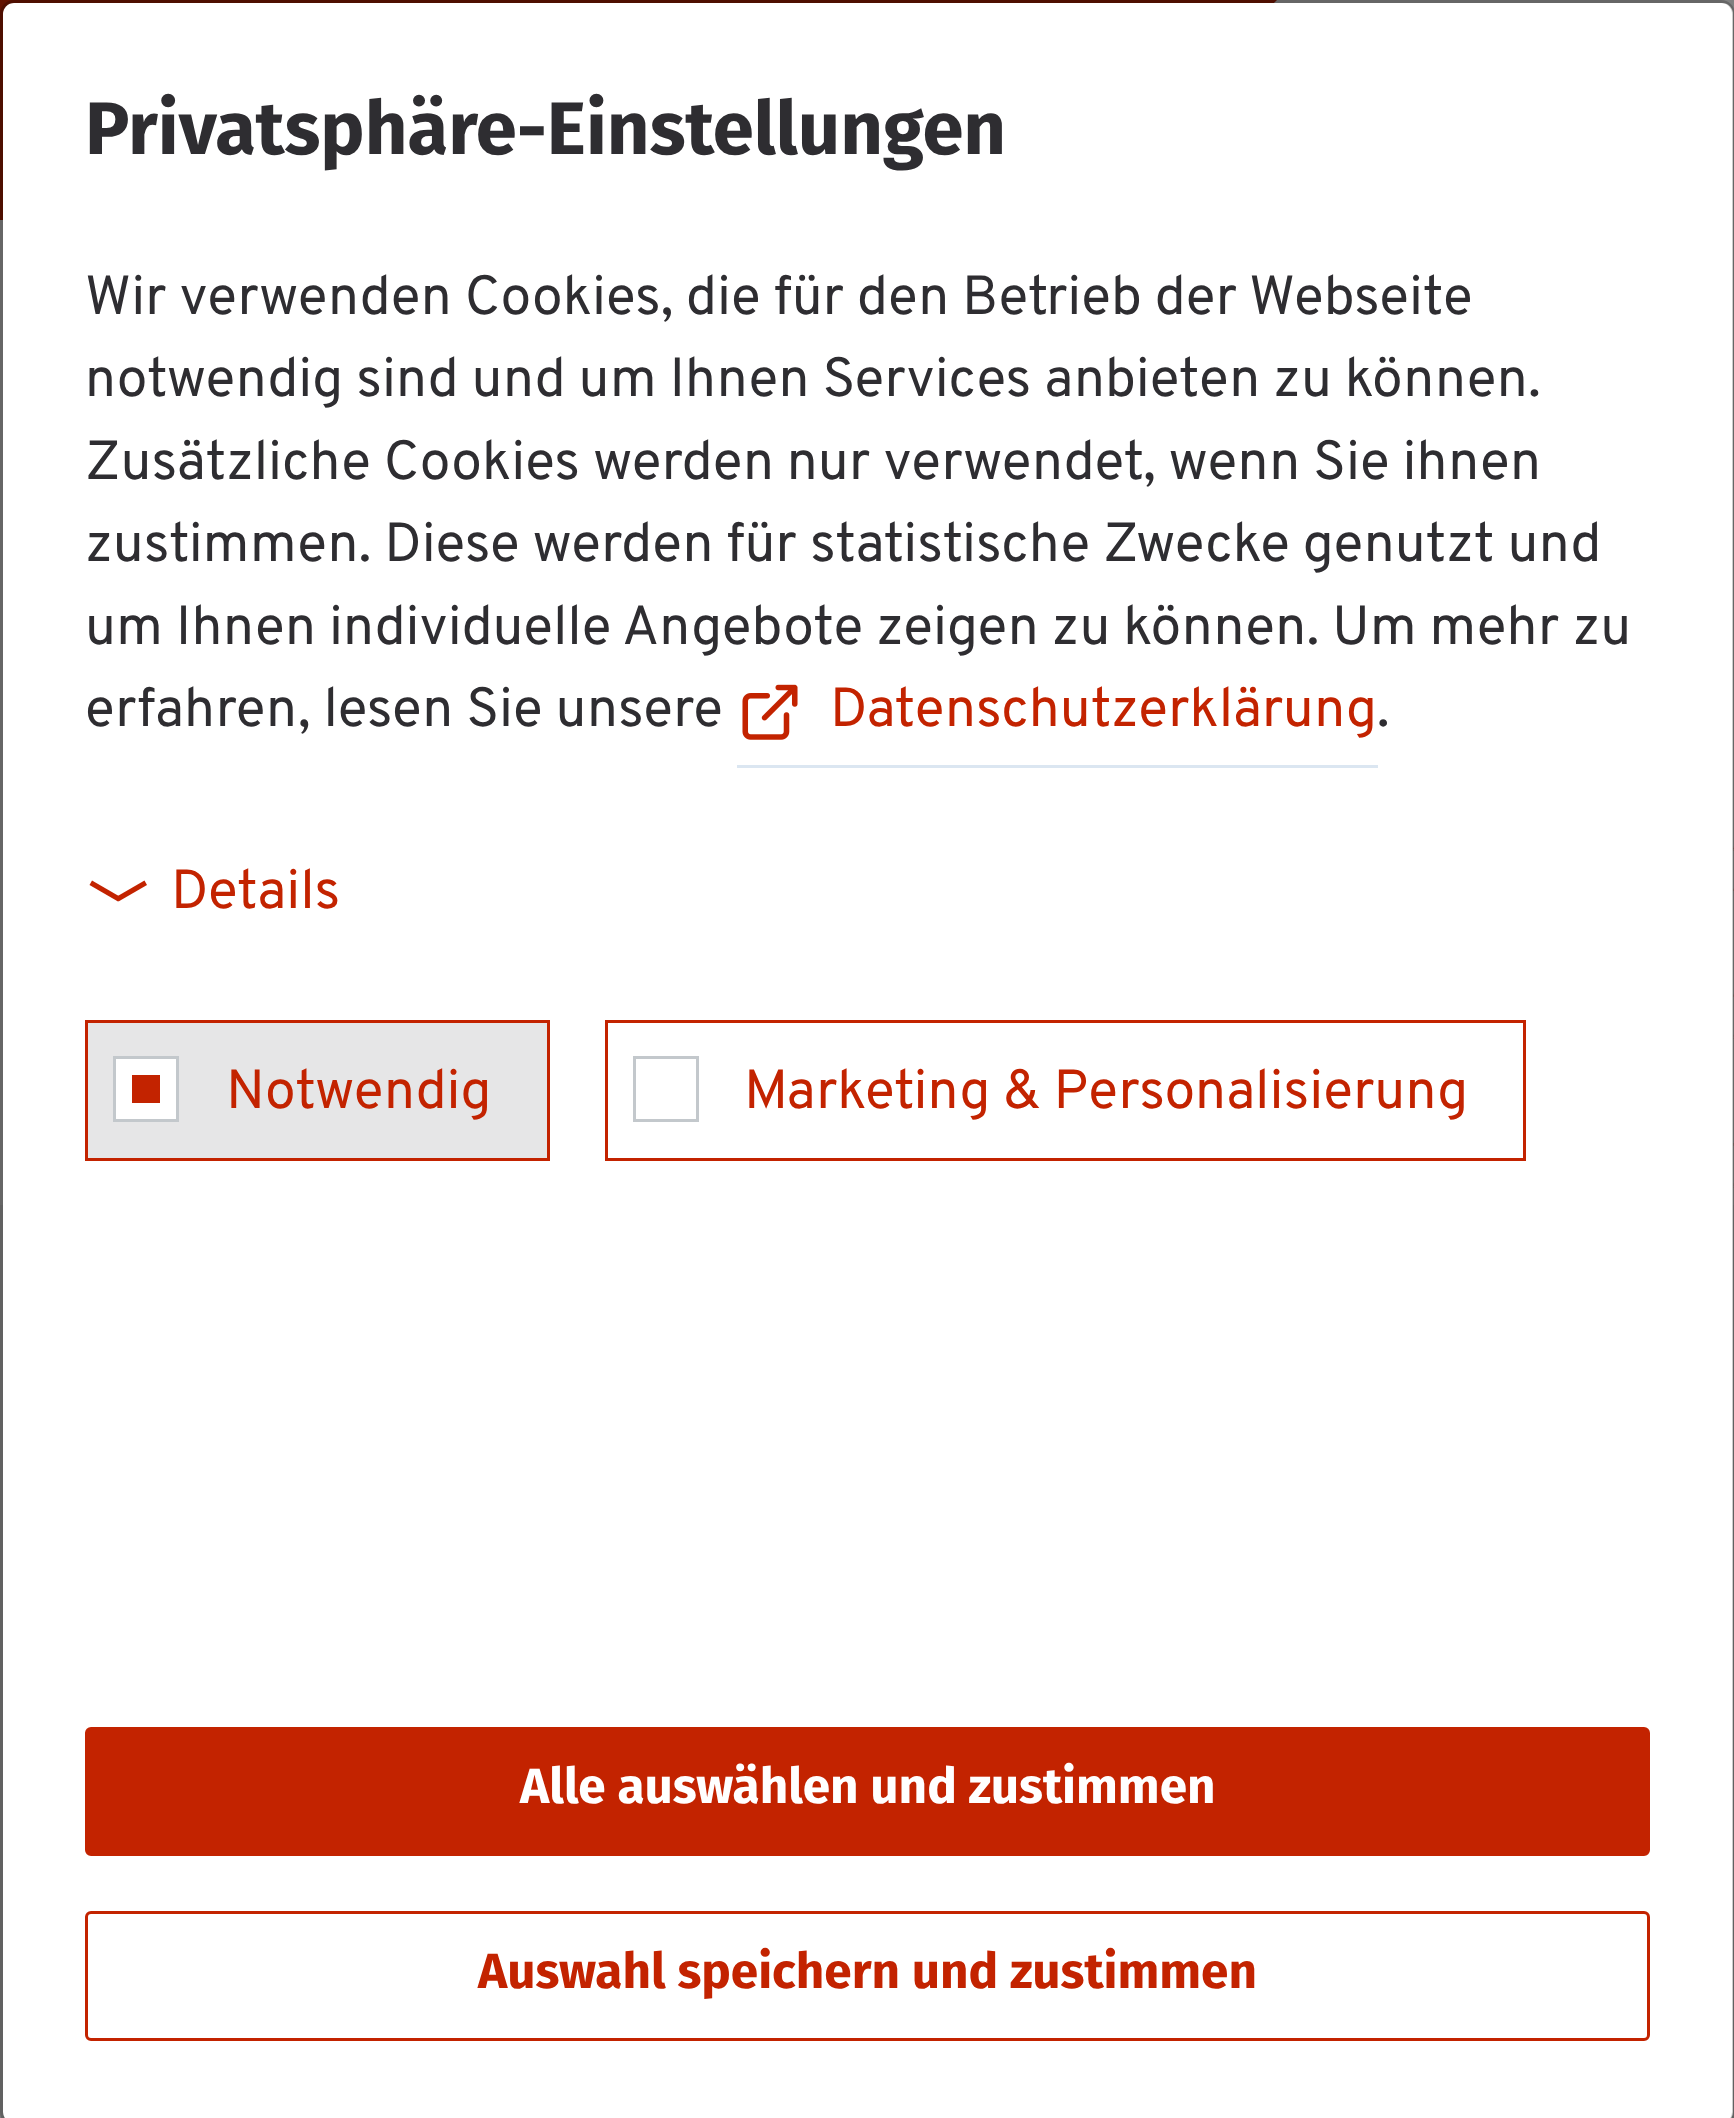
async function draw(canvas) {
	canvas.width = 1734;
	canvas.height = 2118;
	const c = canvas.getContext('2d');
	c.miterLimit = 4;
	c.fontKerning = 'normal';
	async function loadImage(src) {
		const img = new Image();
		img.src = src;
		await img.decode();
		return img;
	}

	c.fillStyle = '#808080';
	c.fillRect(0, 0, 1734, 2118);
	c.fillStyle = '#621200';
	c.fillRect(0, 0, 1277, 220);
	c.fillStyle = '#808080';
	c.beginPath();
	c.moveTo(1277, 0);
	c.lineTo(1051, 220);
	c.lineTo(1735, 220);
	c.lineTo(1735, 0);
	c.closePath();
	c.fill();
	c.drawImage(await loadImage('img1.png'), 1733, 846, 1, 342);
	c.fillStyle = '#7a7a7a';
	c.fillRect(0, 1205, 1734, 913);
	c.fillStyle = '#fff';
	c.beginPath();
	c.roundRect(3, 3, 1730, 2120, 11);
	c.fill();
	c.beginPath();
	c.roundRect(1.5, 1.5, 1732, 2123, 12.5);
	c.strokeStyle = '#00000033';
	c.lineWidth = 3;
	c.stroke();
	c.font = 'bold 74.25px Fira Sans';
	c.fillStyle = '#2e2d31';
	c.fillText('Privatsphäre-Einstellungen', 85, 154);
	c.font = '55px Overpass';
	for (const [text, x, y] of [
		['Wir verwenden Cookies, die für den Betrieb der Webseite', 85, 314],
		['notwendig sind und um Ihnen Services anbieten zu können.', 85, 396],
		['Zusätzliche Cookies werden nur verwendet, wenn Sie ihnen', 85, 479],
		['zustimmen. Diese werden für statistische Zwecke genutzt und', 85, 561],
		['um Ihnen individuelle Angebote zeigen zu können. Um mehr zu', 85, 644],
		['erfahren, lesen Sie unsere', 85, 726],
	]) {
		c.fillText(text, x, y);
	}
	c.fillStyle = '#dbe6f1';
	c.fillRect(737, 765, 641, 3);
	c.drawImage(await loadImage('img2.png'), 742, 684, 56, 56);
	c.fillStyle = '#c32300';
	c.fillText('Datenschutzerklärung', 830, 726);
	c.fillStyle = '#2e2d31';
	c.fillText('.', 1377, 726);
	c.fillStyle = '#c32300';
	c.beginPath();
	c.moveTo(92, 880.5);
	c.lineTo(120.5, 897);
	c.lineTo(118, 901.5);
	c.lineTo(89.5, 885);
	c.closePath();
	c.fill();
	c.beginPath();
	c.moveTo(116, 897);
	c.lineTo(144.5, 880.5);
	c.lineTo(147, 885);
	c.lineTo(118.5, 901.5);
	c.closePath();
	c.fill();
	c.fillText('Details', 171, 908);
	c.fillStyle = '#e6e6e7';
	c.beginPath();
	c.rect(86.5, 1021.5, 462, 138);
	c.fill();
	c.strokeStyle = '#c32300';
	c.stroke();
	c.fillStyle = '#fff';
	c.beginPath();
	c.rect(114.5, 1057.5, 63, 63);
	c.fill();
	c.strokeStyle = '#c3c8cc';
	c.stroke();
	c.fillStyle = '#c32300';
	c.fillText('Notwendig', 226, 1108);
	c.fillRect(132, 1075, 28, 28);
	c.strokeStyle = '#c32300';
	c.strokeRect(606.5, 1021.5, 918, 138);
	c.strokeStyle = '#c3c8cc';
	c.strokeRect(634.5, 1057.5, 63, 63);
	c.fillText('Marketing & Personalisierung', 744, 1108);
	c.beginPath();
	c.roundRect(86.5, 1728.5, 1562, 126, 4.5);
	c.fill();
	c.strokeStyle = '#c32300';
	c.stroke();
	c.font = 'bold 49.5px Fira Sans';
	c.fillStyle = '#fff';
	c.fillText('Alle auswählen und zustimmen', 520, 1803);
	c.beginPath();
	c.roundRect(86.5, 1912.5, 1562, 127, 4.5);
	c.stroke();
	c.fillStyle = '#c32300';
	c.fillText('Auswahl speichern und zustimmen', 478, 1988);
}

draw(document.querySelector('canvas'));
